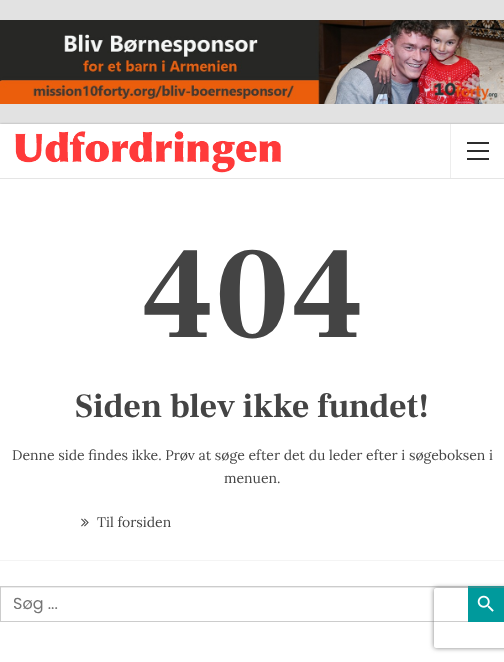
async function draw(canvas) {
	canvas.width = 504;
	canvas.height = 662;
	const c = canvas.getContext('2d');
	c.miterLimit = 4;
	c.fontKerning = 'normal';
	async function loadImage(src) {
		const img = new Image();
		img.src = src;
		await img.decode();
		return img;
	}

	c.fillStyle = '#e2e2e2';
	c.fillRect(0, 0, 504, 662);
	c.drawImage(await loadImage('img1.png'), 0, 20, 504, 84);
	c.fillStyle = '#00000045';
	c.filter = 'blur(1px)';
	c.beginPath();
	c.rect(0, 124, 504, 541);
	c.fill();
	c.filter = 'none';
	c.fillStyle = '#fff';
	c.fillRect(0, 124, 504, 538);
	c.fillStyle = '#e5e5e5';
	c.fillRect(0, 178, 504, 1);
	c.drawImage(await loadImage('img2.png'), 15, 131, 266, 42);
	for (const [x, y, w, h, color] of [
		[450, 124, 1, 54, '#ededed'],
		[467, 150, 22, 2, '#2c2c2c'],
		[467, 142, 22, 2, '#2c2c2c'],
		[467, 158, 22, 2, '#2c2c2c'],
	]) {
		c.fillStyle = color;
		c.fillRect(x, y, w, h);
	}
	c.font = 'bold 130px Frank Ruhl Libre';
	c.fillStyle = '#444';
	c.fillText('404', 141, 337);
	c.font = 'bold 34px Frank Ruhl Libre';
	c.fillText('Siden blev ikke fundet!', 75, 417);
	c.font = '14px Lora';
	c.fillText('Denne side findes ikke. Prøv at søge efter det du leder efter i søgeboksen i', 12, 460);
	c.fillText('menuen.', 224, 483);
	c.drawImage(await loadImage('img3.png'), 81, 518, 8, 9);
	c.fillText('Til forsiden', 97, 527);
	for (const [x, y, w, h, color] of [
		[0, 560, 504, 1, '#f4f4f4'],
		[1, 587, 467, 1, '#ececec'],
		[0, 586, 468, 1, '#ccc'],
		[0, 621, 468, 1, '#ccc'],
		[0, 586, 1, 36, '#ccc'],
	]) {
		c.fillStyle = color;
		c.fillRect(x, y, w, h);
	}
	c.font = '16px Poppins';
	c.fillStyle = '#757575';
	c.fillText('Søg ...', 13, 609);
	c.fillStyle = '#009a9c';
	c.fillRect(468, 586, 36, 36);
	c.drawImage(await loadImage('img4.png'), 477, 595, 17, 17);
	c.save();
	c.beginPath();
	c.moveTo(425, 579);
	c.lineTo(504, 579);
	c.lineTo(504, 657);
	c.lineTo(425, 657);
	c.closePath();
	c.moveTo(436, 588);
	c.lineTo(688, 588);
	c.bezierCurveTo(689, 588, 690, 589, 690, 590);
	c.lineTo(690, 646);
	c.bezierCurveTo(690, 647, 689, 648, 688, 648);
	c.lineTo(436, 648);
	c.bezierCurveTo(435, 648, 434, 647, 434, 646);
	c.lineTo(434, 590);
	c.bezierCurveTo(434, 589, 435, 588, 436, 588);
	c.closePath();
	c.clip('evenodd');
	c.fillStyle = '#808080';
	c.filter = 'blur(2.5px)';
	c.beginPath();
	c.roundRect(434, 588, 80, 60, 2);
	c.fill();
	c.filter = 'none';
	c.restore();
}

draw(document.querySelector('canvas'));
